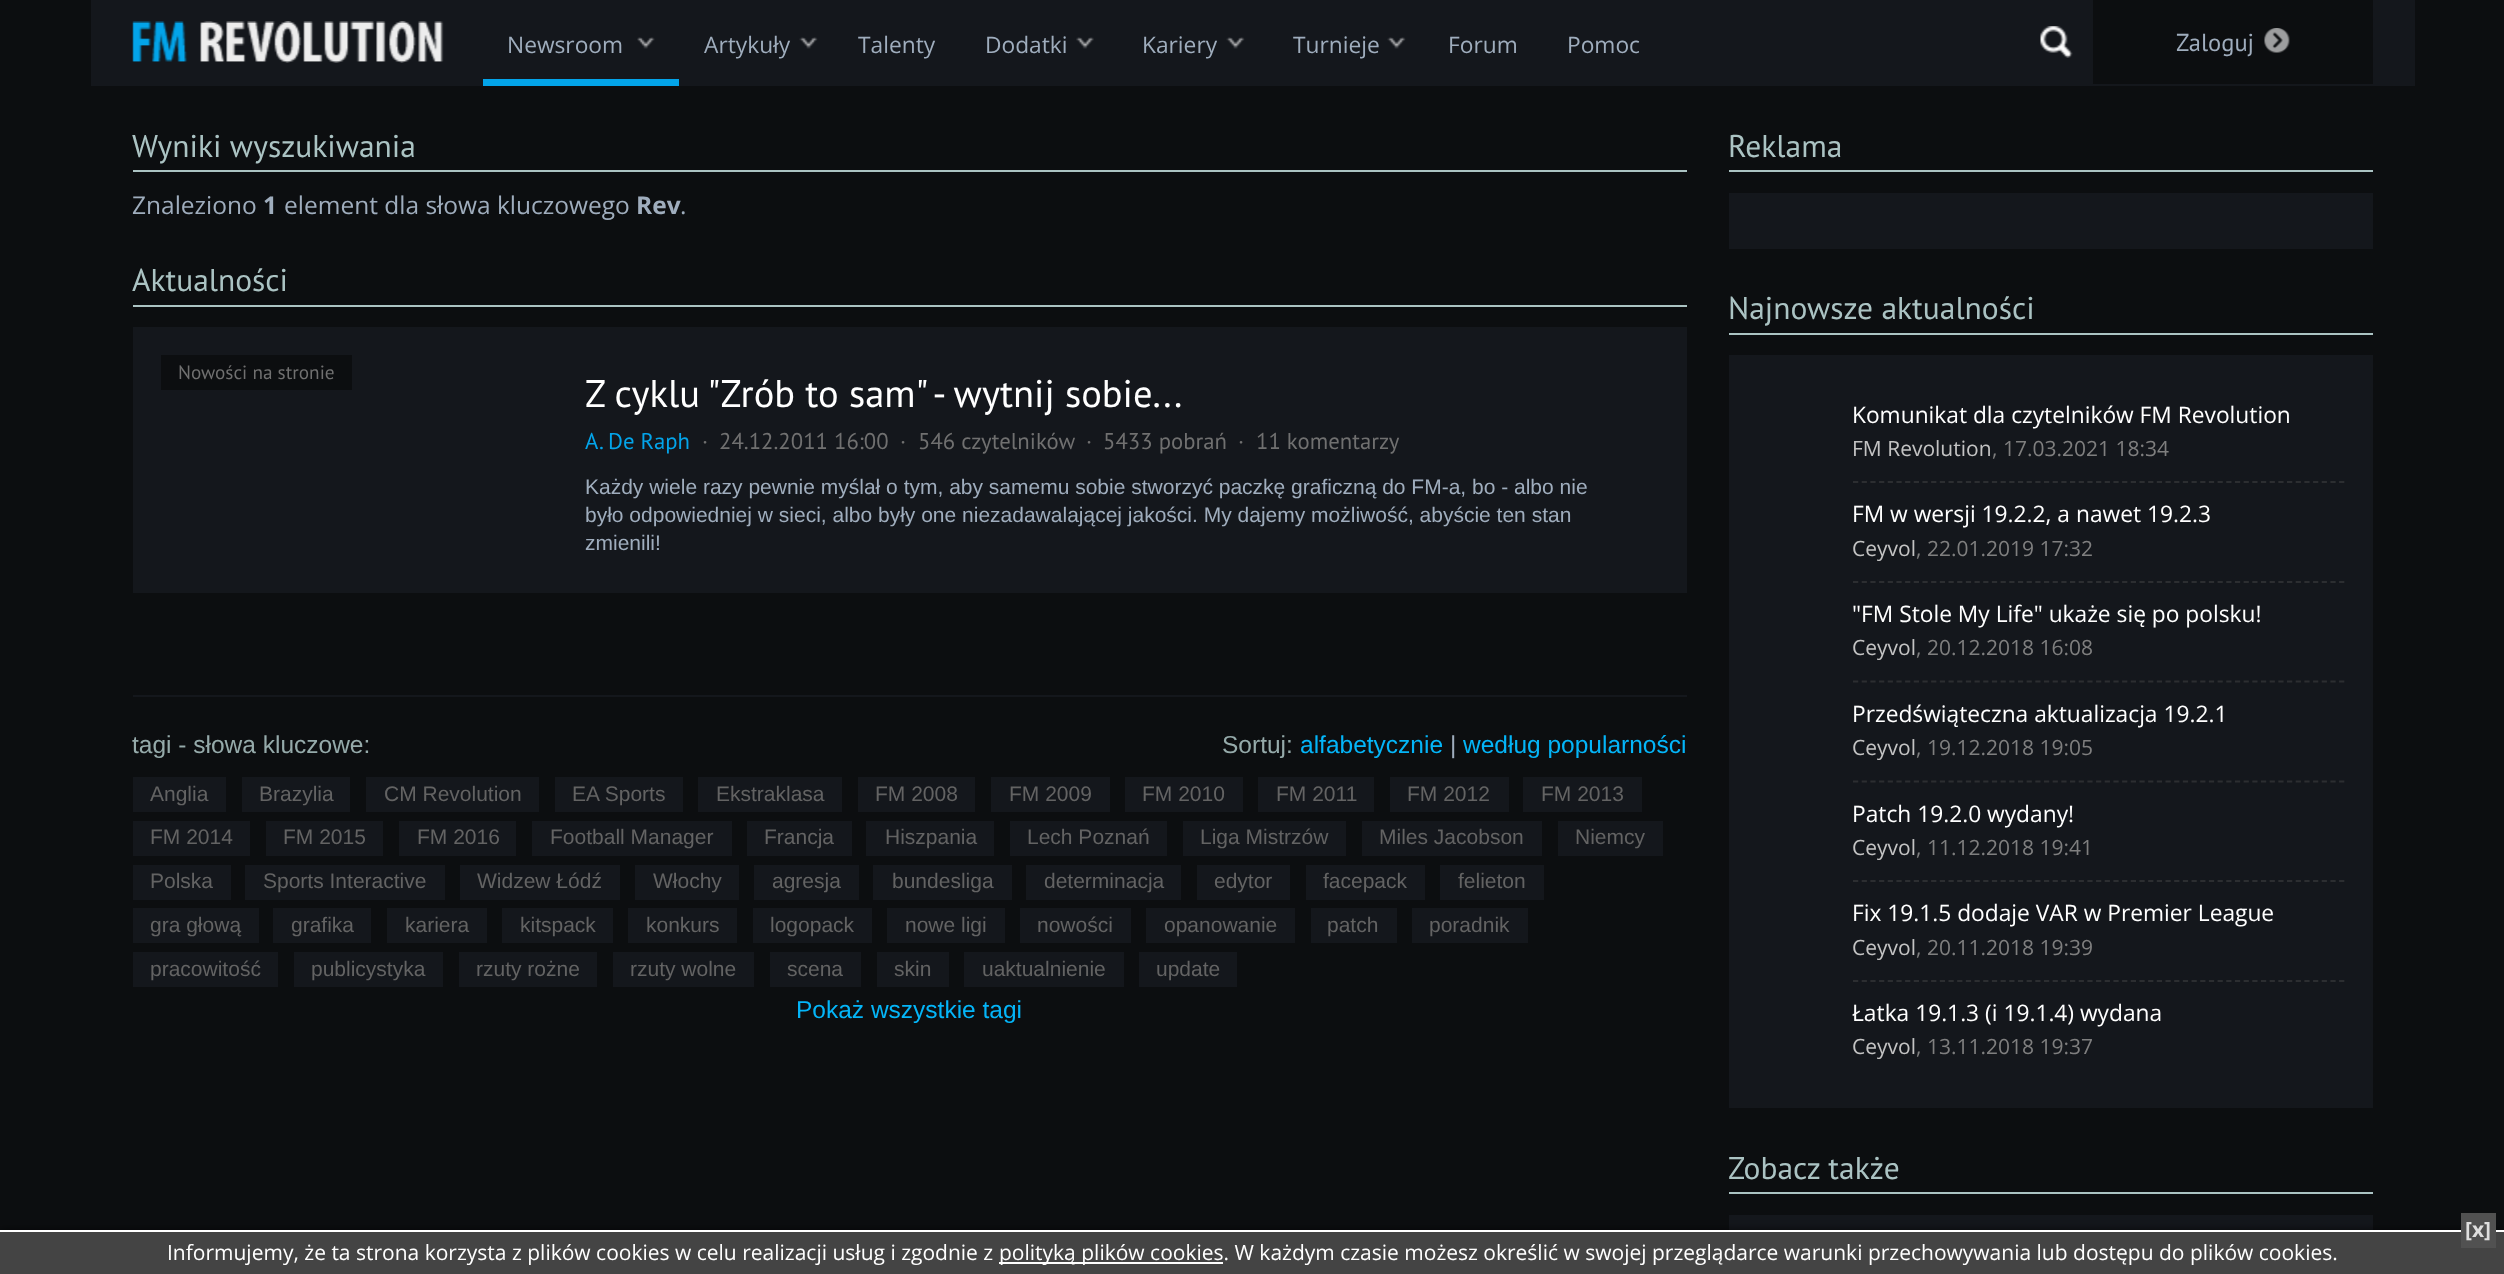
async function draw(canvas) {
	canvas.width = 2504;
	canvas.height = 1274;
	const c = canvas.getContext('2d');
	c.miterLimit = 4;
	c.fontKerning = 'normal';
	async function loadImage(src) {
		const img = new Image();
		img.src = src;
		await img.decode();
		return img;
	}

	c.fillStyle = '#0c0e10';
	c.fillRect(0, 0, 2504, 1274);
	c.fillStyle = '#14171c';
	c.fillRect(91, 0, 2324, 86);
	c.drawImage(await loadImage('img1.png'), 132, 21, 312, 42);
	c.fillStyle = '#03a4e9';
	c.fillRect(483, 79, 196, 7);
	c.font = '22.75px Open Sans';
	c.fillStyle = '#9fadbd';
	c.fillText('Newsroom', 507, 53);
	c.drawImage(await loadImage('img2.png'), 637, 37, 18, 12);
	c.fillText('Artykuły', 704, 53);
	c.drawImage(await loadImage('img3.png'), 799, 37, 19, 12);
	c.fillText('Talenty', 858, 53);
	c.fillText('Dodatki', 985, 53);
	c.drawImage(await loadImage('img4.png'), 1076, 37, 18, 12);
	c.fillText('Kariery', 1142, 53);
	c.drawImage(await loadImage('img3.png'), 1226, 37, 19, 12);
	c.fillText('Turnieje', 1293, 53);
	c.drawImage(await loadImage('img3.png'), 1387, 37, 19, 12);
	c.fillText('Forum', 1448, 53);
	c.fillText('Pomoc', 1567, 53);
	c.drawImage(await loadImage('img5.png'), 2040, 26, 33, 32);
	c.fillStyle = '#0c0e10';
	c.fillRect(2093, 0, 280, 84);
	c.font = '24.5px PT Sans';
	c.fillStyle = '#9fadbd';
	c.fillText('Zaloguj', 2176, 51);
	c.drawImage(await loadImage('img6.png'), 2264, 28, 26, 25);
	c.fillStyle = '#abc3c3';
	c.fillRect(133, 170, 1554, 2);
	c.font = '31.5px PT Sans';
	c.fillText('Wyniki wyszukiwania', 132, 157);
	c.font = '24.5px Open Sans';
	c.fillStyle = '#9fadbd';
	c.fillText('Znaleziono', 132, 214);
	c.font = 'bold 24.5px Open Sans';
	c.fillText('1', 263, 214);
	c.font = '24.5px Open Sans';
	c.fillText('element dla słowa kluczowego', 284, 214);
	c.font = 'bold 24.5px Open Sans';
	c.fillText('Rev', 636, 214);
	c.font = '24.5px Open Sans';
	c.fillText('.', 680, 214);
	c.fillStyle = '#abc3c3';
	c.fillRect(133, 305, 1554, 2);
	c.font = '31.5px PT Sans';
	c.fillText('Aktualności', 132, 291);
	c.fillStyle = '#14171c';
	c.fillRect(133, 327, 1554, 266);
	c.fillStyle = '#0c0e10';
	c.fillRect(161, 355, 191, 35);
	c.font = '19.25px PT Sans';
	c.fillStyle = '#707070';
	c.fillText('Nowości na stronie', 178, 379);
	c.font = '38.5px PT Sans';
	c.fillStyle = '#fff';
	c.fillText('Z cyklu "Zrób to sam" - wytnij sobie...', 585, 407);
	c.font = '22.75px PT Sans';
	c.fillStyle = '#03a4e9';
	c.fillText('A. De Raph', 585, 449);
	c.fillStyle = '#707070';
	for (const [text, x, y] of [
		['·', 702, 449],
		['24.12.2011 16:00', 719, 449],
		['·', 900, 449],
		['546 czytelników', 918, 449],
		['·', 1086, 449],
		['5433 pobrań', 1103, 449],
		['·', 1238, 449],
		['11 komentarzy', 1256, 449],
	]) {
		c.fillText(text, x, y);
	}
	c.font = '21px Liberation Sans';
	c.fillStyle = '#9fadbd';
	for (const [text, x, y] of [
		['Każdy wiele razy pewnie myślał o tym, aby samemu sobie stworzyć paczkę graficzną do FM-a, bo - albo nie', 585, 494],
		['było odpowiedniej w sieci, albo były one niezadawalającej jakości. My dajemy możliwość, abyście ten stan', 585, 522],
		['zmienili!', 585, 550],
	]) {
		c.fillText(text, x, y);
	}
	c.fillStyle = '#14171c';
	c.fillRect(133, 695, 1554, 2);
	c.font = '24.5px Liberation Sans';
	c.fillStyle = '#95aaaa';
	c.fillText('tagi - słowa kluczowe:', 132, 753);
	c.fillText('Sortuj:', 1222, 753);
	c.fillStyle = '#04b5f8';
	c.fillText('alfabetycznie', 1300, 753);
	c.fillStyle = '#9fadbd';
	c.fillText('|', 1450, 753);
	c.fillStyle = '#04b5f8';
	c.fillText('według popularności', 1463, 753);
	c.fillStyle = '#14171c';
	c.fillRect(133, 777, 93, 35);
	c.font = '21px Liberation Sans';
	c.fillStyle = '#636363';
	c.fillText('Anglia', 150, 801);
	c.fillStyle = '#14171c';
	c.fillRect(242, 777, 108, 35);
	c.fillStyle = '#636363';
	c.fillText('Brazylia', 259, 801);
	c.fillStyle = '#14171c';
	c.fillRect(366, 777, 173, 35);
	c.fillStyle = '#636363';
	c.fillText('CM Revolution', 384, 801);
	c.fillStyle = '#14171c';
	c.fillRect(555, 777, 128, 35);
	c.fillStyle = '#636363';
	c.fillText('EA Sports', 572, 801);
	c.fillStyle = '#14171c';
	c.fillRect(698, 777, 144, 35);
	c.fillStyle = '#636363';
	c.fillText('Ekstraklasa', 716, 801);
	c.fillStyle = '#14171c';
	c.fillRect(858, 777, 117, 35);
	c.fillStyle = '#636363';
	c.fillText('FM 2008', 875, 801);
	c.fillStyle = '#14171c';
	c.fillRect(991, 777, 119, 35);
	c.fillStyle = '#636363';
	c.fillText('FM 2009', 1009, 801);
	c.fillStyle = '#14171c';
	c.fillRect(1125, 777, 118, 35);
	c.fillStyle = '#636363';
	c.fillText('FM 2010', 1142, 801);
	c.fillStyle = '#14171c';
	c.fillRect(1258, 777, 116, 35);
	c.fillStyle = '#636363';
	c.fillText('FM 2011', 1276, 801);
	c.fillStyle = '#14171c';
	c.fillRect(1390, 777, 119, 35);
	c.fillStyle = '#636363';
	c.fillText('FM 2012', 1407, 801);
	c.fillStyle = '#14171c';
	c.fillRect(1523, 777, 119, 35);
	c.fillStyle = '#636363';
	c.fillText('FM 2013', 1541, 801);
	c.fillStyle = '#14171c';
	c.fillRect(133, 821, 117, 35);
	c.fillStyle = '#636363';
	c.fillText('FM 2014', 150, 844);
	c.fillStyle = '#14171c';
	c.fillRect(266, 821, 117, 35);
	c.fillStyle = '#636363';
	c.fillText('FM 2015', 283, 844);
	c.fillStyle = '#14171c';
	c.fillRect(399, 821, 117, 35);
	c.fillStyle = '#636363';
	c.fillText('FM 2016', 417, 844);
	c.fillStyle = '#14171c';
	c.fillRect(532, 821, 200, 35);
	c.fillStyle = '#636363';
	c.fillText('Football Manager', 550, 844);
	c.fillStyle = '#14171c';
	c.fillRect(747, 821, 105, 35);
	c.fillStyle = '#636363';
	c.fillText('Francja', 764, 844);
	c.fillStyle = '#14171c';
	c.fillRect(866, 821, 128, 35);
	c.fillStyle = '#636363';
	c.fillText('Hiszpania', 885, 844);
	c.fillStyle = '#14171c';
	c.fillRect(1010, 821, 157, 35);
	c.fillStyle = '#636363';
	c.fillText('Lech Poznań', 1027, 844);
	c.fillStyle = '#14171c';
	c.fillRect(1183, 821, 163, 35);
	c.fillStyle = '#636363';
	c.fillText('Liga Mistrzów', 1200, 844);
	c.fillStyle = '#14171c';
	c.fillRect(1362, 821, 180, 35);
	c.fillStyle = '#636363';
	c.fillText('Miles Jacobson', 1379, 844);
	c.fillStyle = '#14171c';
	c.fillRect(1558, 821, 105, 35);
	c.fillStyle = '#636363';
	c.fillText('Niemcy', 1575, 844);
	c.fillStyle = '#14171c';
	c.fillRect(133, 865, 98, 35);
	c.fillStyle = '#636363';
	c.fillText('Polska', 150, 888);
	c.fillStyle = '#14171c';
	c.fillRect(245, 865, 200, 35);
	c.fillStyle = '#636363';
	c.fillText('Sports Interactive', 263, 888);
	c.fillStyle = '#14171c';
	c.fillRect(460, 865, 160, 35);
	c.fillStyle = '#636363';
	c.fillText('Widzew Łódź', 477, 888);
	c.fillStyle = '#14171c';
	c.fillRect(635, 865, 104, 35);
	c.fillStyle = '#636363';
	c.fillText('Włochy', 653, 888);
	c.fillStyle = '#14171c';
	c.fillRect(754, 865, 105, 35);
	c.fillStyle = '#636363';
	c.fillText('agresja', 772, 888);
	c.fillStyle = '#14171c';
	c.fillRect(873, 865, 139, 35);
	c.fillStyle = '#636363';
	c.fillText('bundesliga', 892, 888);
	c.fillStyle = '#14171c';
	c.fillRect(1026, 865, 155, 35);
	c.fillStyle = '#636363';
	c.fillText('determinacja', 1044, 888);
	c.fillStyle = '#14171c';
	c.fillRect(1197, 865, 93, 35);
	c.fillStyle = '#636363';
	c.fillText('edytor', 1214, 888);
	c.fillStyle = '#14171c';
	c.fillRect(1306, 865, 119, 35);
	c.fillStyle = '#636363';
	c.fillText('facepack', 1323, 888);
	c.fillStyle = '#14171c';
	c.fillRect(1440, 865, 104, 35);
	c.fillStyle = '#636363';
	c.fillText('felieton', 1458, 888);
	c.fillStyle = '#14171c';
	c.fillRect(133, 908, 126, 35);
	c.fillStyle = '#636363';
	c.fillText('gra głową', 150, 932);
	c.fillStyle = '#14171c';
	c.fillRect(273, 908, 98, 35);
	c.fillStyle = '#636363';
	c.fillText('grafika', 291, 932);
	c.fillStyle = '#14171c';
	c.fillRect(387, 908, 100, 35);
	c.fillStyle = '#636363';
	c.fillText('kariera', 405, 932);
	c.fillStyle = '#14171c';
	c.fillRect(502, 908, 111, 35);
	c.fillStyle = '#636363';
	c.fillText('kitspack', 520, 932);
	c.fillStyle = '#14171c';
	c.fillRect(628, 908, 109, 35);
	c.fillStyle = '#636363';
	c.fillText('konkurs', 646, 932);
	c.fillStyle = '#14171c';
	c.fillRect(753, 908, 119, 35);
	c.fillStyle = '#636363';
	c.fillText('logopack', 770, 932);
	c.fillStyle = '#14171c';
	c.fillRect(887, 908, 118, 35);
	c.fillStyle = '#636363';
	c.fillText('nowe ligi', 905, 932);
	c.fillStyle = '#14171c';
	c.fillRect(1020, 908, 111, 35);
	c.fillStyle = '#636363';
	c.fillText('nowości', 1037, 932);
	c.fillStyle = '#14171c';
	c.fillRect(1146, 908, 149, 35);
	c.fillStyle = '#636363';
	c.fillText('opanowanie', 1164, 932);
	c.fillStyle = '#14171c';
	c.fillRect(1311, 908, 86, 35);
	c.fillStyle = '#636363';
	c.fillText('patch', 1327, 932);
	c.fillStyle = '#14171c';
	c.fillRect(1412, 908, 116, 35);
	c.fillStyle = '#636363';
	c.fillText('poradnik', 1429, 932);
	c.fillStyle = '#14171c';
	c.fillRect(133, 952, 145, 35);
	c.fillStyle = '#636363';
	c.fillText('pracowitość', 150, 976);
	c.fillStyle = '#14171c';
	c.fillRect(294, 952, 149, 35);
	c.fillStyle = '#636363';
	c.fillText('publicystyka', 311, 976);
	c.fillStyle = '#14171c';
	c.fillRect(459, 952, 138, 35);
	c.fillStyle = '#636363';
	c.fillText('rzuty rożne', 476, 976);
	c.fillStyle = '#14171c';
	c.fillRect(613, 952, 141, 35);
	c.fillStyle = '#636363';
	c.fillText('rzuty wolne', 630, 976);
	c.fillStyle = '#14171c';
	c.fillRect(770, 952, 91, 35);
	c.fillStyle = '#636363';
	c.fillText('scena', 787, 976);
	c.fillStyle = '#14171c';
	c.fillRect(877, 952, 72, 35);
	c.fillStyle = '#636363';
	c.fillText('skin', 894, 976);
	c.fillStyle = '#14171c';
	c.fillRect(964, 952, 160, 35);
	c.fillStyle = '#636363';
	c.fillText('uaktualnienie', 982, 976);
	c.fillStyle = '#14171c';
	c.fillRect(1139, 952, 98, 35);
	c.fillStyle = '#636363';
	c.fillText('update', 1156, 976);
	c.font = '24.5px Liberation Sans';
	c.fillStyle = '#04b5f8';
	c.fillText('Pokaż wszystkie tagi', 796, 1018);
	c.fillStyle = '#abc3c3';
	c.fillRect(1729, 170, 644, 2);
	c.font = '31.5px PT Sans';
	c.fillText('Reklama', 1728, 157);
	c.fillStyle = '#14171c';
	c.fillRect(1729, 193, 644, 56);
	c.fillStyle = '#abc3c3';
	c.fillRect(1729, 333, 644, 2);
	c.fillText('Najnowsze aktualności', 1728, 319);
	c.fillStyle = '#14171c';
	c.fillRect(1729, 355, 644, 753);
	c.beginPath();
	c.moveTo(1853, 482);
	c.lineTo(2345, 482);
	c.strokeStyle = '#2c2e31';
	c.lineWidth = 1.8;
	c.setLineDash([5.25, 3.43]);
	c.stroke();
	c.font = '22.75px Open Sans';
	c.fillStyle = '#fff';
	c.fillText('Komunikat dla czytelników FM Revolution', 1852, 423);
	c.font = '21px Open Sans';
	c.fillStyle = '#c3c3c3';
	c.fillText('FM Revolution', 1852, 456);
	c.fillStyle = '#7f7f7f';
	c.fillText(', 17.03.2021 18:34', 1992, 456);
	c.beginPath();
	c.moveTo(1853, 582);
	c.lineTo(2345, 582);
	c.stroke();
	c.font = '22.75px Open Sans';
	c.fillStyle = '#fff';
	c.fillText('FM w wersji 19.2.2, a nawet 19.2.3', 1852, 522);
	c.font = '21px Open Sans';
	c.fillStyle = '#c3c3c3';
	c.fillText('Ceyvol', 1852, 556);
	c.fillStyle = '#7f7f7f';
	c.fillText(', 22.01.2019 17:32', 1916, 556);
	c.beginPath();
	c.moveTo(1853, 681.5);
	c.lineTo(2345, 681.5);
	c.stroke();
	c.font = '22.75px Open Sans';
	c.fillStyle = '#fff';
	c.fillText('"FM Stole My Life" ukaże się po polsku!', 1852, 622);
	c.font = '21px Open Sans';
	c.fillStyle = '#c3c3c3';
	c.fillText('Ceyvol', 1852, 655);
	c.fillStyle = '#7f7f7f';
	c.fillText(', 20.12.2018 16:08', 1916, 655);
	c.beginPath();
	c.moveTo(1853, 781.5);
	c.lineTo(2345, 781.5);
	c.stroke();
	c.font = '22.75px Open Sans';
	c.fillStyle = '#fff';
	c.fillText('Przedświąteczna aktualizacja 19.2.1', 1852, 722);
	c.font = '21px Open Sans';
	c.fillStyle = '#c3c3c3';
	c.fillText('Ceyvol', 1852, 755);
	c.fillStyle = '#7f7f7f';
	c.fillText(', 19.12.2018 19:05', 1916, 755);
	c.beginPath();
	c.moveTo(1853, 881);
	c.lineTo(2345, 881);
	c.stroke();
	c.font = '22.75px Open Sans';
	c.fillStyle = '#fff';
	c.fillText('Patch 19.2.0 wydany!', 1852, 822);
	c.font = '21px Open Sans';
	c.fillStyle = '#c3c3c3';
	c.fillText('Ceyvol', 1852, 855);
	c.fillStyle = '#7f7f7f';
	c.fillText(', 11.12.2018 19:41', 1916, 855);
	c.beginPath();
	c.moveTo(1853, 981);
	c.lineTo(2345, 981);
	c.stroke();
	c.font = '22.75px Open Sans';
	c.fillStyle = '#fff';
	c.fillText('Fix 19.1.5 dodaje VAR w Premier League', 1852, 921);
	c.font = '21px Open Sans';
	c.fillStyle = '#c3c3c3';
	c.fillText('Ceyvol', 1852, 955);
	c.fillStyle = '#7f7f7f';
	c.fillText(', 20.11.2018 19:39', 1916, 955);
	c.font = '22.75px Open Sans';
	c.fillStyle = '#fff';
	c.fillText('Łatka 19.1.3 (i 19.1.4) wydana', 1852, 1021);
	c.font = '21px Open Sans';
	c.fillStyle = '#c3c3c3';
	c.fillText('Ceyvol', 1852, 1054);
	c.fillStyle = '#7f7f7f';
	c.fillText(', 13.11.2018 19:37', 1916, 1054);
	c.fillStyle = '#abc3c3';
	c.fillRect(1729, 1192, 644, 2);
	c.font = '31.5px PT Sans';
	c.fillText('Zobacz także', 1728, 1179);
	c.fillStyle = '#14171c';
	c.fillRect(1729, 1215, 644, 15);
	c.fillStyle = '#000000a3';
	c.filter = 'blur(4.5px)';
	c.beginPath();
	c.rect(0, 1230, 2504, 44);
	c.fill();
	c.filter = 'none';
	for (const [x, y, w, h, color] of [
		[0, 1232, 2504, 42, '#444'],
		[0, 1230, 2504, 2, '#fff'],
		[2461, 1213, 35, 35, '#515151'],
	]) {
		c.fillStyle = color;
		c.fillRect(x, y, w, h);
	}
	c.font = 'bold 21px Open Sans';
	c.fillStyle = '#dfdfdf';
	c.fillText('[x]', 2465, 1237);
	c.font = '21px Open Sans';
	c.fillStyle = '#fff';
	c.fillText('Informujemy, że ta strona korzysta z plików cookies w celu realizacji usług i zgodnie z', 167, 1260);
	c.fillRect(999, 1262, 224, 2);
	c.fillText('polityką plików cookies. W każdym czasie możesz określić w swojej przeglądarce warunki przechowywania lub dostępu do plików cookies.', 999, 1260);
}

draw(document.querySelector('canvas'));
